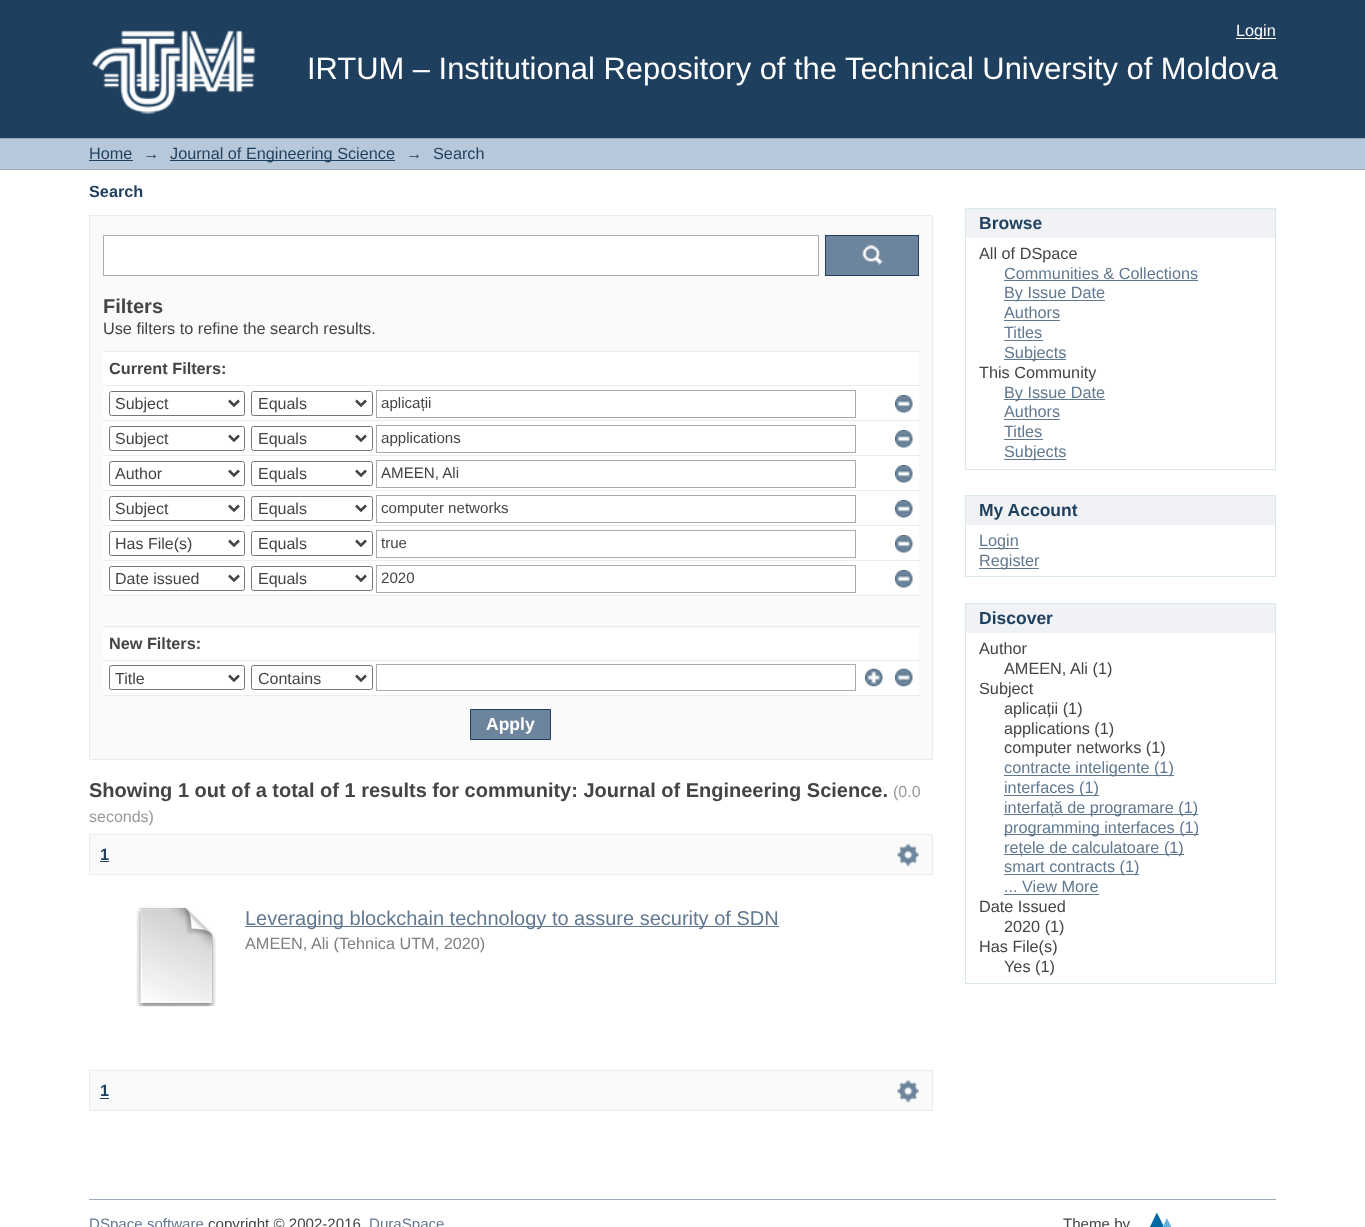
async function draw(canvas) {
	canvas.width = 1365;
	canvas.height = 1227;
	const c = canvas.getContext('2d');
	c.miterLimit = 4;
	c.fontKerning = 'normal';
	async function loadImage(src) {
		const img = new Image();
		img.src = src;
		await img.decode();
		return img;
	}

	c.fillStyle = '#fff';
	c.fillRect(0, 0, 1365, 1227);
	c.fillStyle = '#1f3f5e';
	c.fillRect(0, 0, 1365, 138);
	c.fillStyle = '#fff';
	c.fillRect(1236, 38, 40, 1);
	c.font = '16.25px Liberation Sans';
	c.fillText('Login', 1236, 36);
	c.drawImage(await loadImage('img1.png'), 92, 30, 164, 84);
	c.font = '30.9px Liberation Sans';
	c.fillText('IRTUM – Institutional Repository of the Technical University of Moldova', 307, 79);
	for (const [x, y, w, h, color] of [
		[0, 139, 1365, 30, '#b6c8d9'],
		[0, 138, 1365, 1, '#9cacba'],
		[0, 169, 1365, 1, '#9cacba'],
	]) {
		c.fillStyle = color;
		c.fillRect(x, y, w, h);
	}
	c.font = '16.25px Liberation Sans';
	c.fillStyle = '#1f3f5e';
	c.fillText('Home', 89, 159);
	c.fillRect(89, 160, 44, 1);
	c.fillText('→', 143, 159);
	c.fillRect(170, 160, 225, 1);
	for (const [text, x, y] of [
		['Journal of Engineering Science', 170, 159],
		['→', 406, 159],
		['Search', 433, 159],
	]) {
		c.fillText(text, x, y);
	}
	c.font = 'bold 16.25px Liberation Sans';
	c.fillText('Search', 89, 197);
	c.fillStyle = '#fafafa';
	c.beginPath();
	c.rect(89.5, 215.5, 843, 544);
	c.fill();
	c.strokeStyle = '#ebebeb';
	c.stroke();
	c.fillStyle = '#fff';
	c.beginPath();
	c.rect(103.5, 235.5, 715, 40);
	c.fill();
	c.strokeStyle = '#aaa';
	c.stroke();
	c.fillStyle = '#6d859c';
	c.fillRect(826, 236, 92, 39);
	c.drawImage(await loadImage('img2.png'), 862, 244, 21, 22);
	c.strokeStyle = '#1f3f5e';
	c.strokeRect(825.5, 235.5, 93, 40);
	c.font = 'bold 20px Liberation Sans';
	c.fillStyle = '#444';
	c.fillText('Filters', 103, 313);
	c.font = '16.25px Liberation Sans';
	c.fillText('Use filters to refine the search results.', 103, 334);
	c.fillStyle = '#fff';
	c.fillRect(103, 352, 816, 343);
	c.fillStyle = '#ebebeb';
	c.fillRect(103, 351, 817, 1);
	c.font = 'bold 16.25px Liberation Sans';
	c.fillStyle = '#444';
	c.fillText('Current Filters:', 109, 374);
	c.fillStyle = '#ebebeb';
	c.fillRect(103, 385, 817, 1);
	c.beginPath();
	c.roundRect(109.5, 391.5, 135, 24, 2);
	c.strokeStyle = '#767676';
	c.stroke();
	c.beginPath();
	c.moveTo(229, 400.5);
	c.lineTo(234, 405.5);
	c.lineTo(239, 400.5);
	c.strokeStyle = '#444';
	c.lineWidth = 2.5;
	c.stroke();
	c.font = '16px Liberation Sans';
	c.fillStyle = '#444';
	c.fillText('Subject', 115, 409);
	c.beginPath();
	c.roundRect(251.5, 391.5, 121, 24, 2);
	c.strokeStyle = '#767676';
	c.lineWidth = 1;
	c.stroke();
	c.beginPath();
	c.moveTo(356, 400.5);
	c.lineTo(361, 405.5);
	c.lineTo(366, 400.5);
	c.strokeStyle = '#444';
	c.lineWidth = 2.5;
	c.stroke();
	c.fillText('Equals', 258, 409);
	c.strokeStyle = '#aaa';
	c.lineWidth = 1;
	c.strokeRect(376.5, 390.5, 479, 27);
	c.font = '15.1px Liberation Sans';
	c.fillText('aplicații', 381, 408);
	c.drawImage(await loadImage('img3.png'), 895, 395, 18, 18);
	c.fillStyle = '#ebebeb';
	c.fillRect(103, 420, 817, 1);
	c.beginPath();
	c.roundRect(109.5, 426.5, 135, 24, 2);
	c.strokeStyle = '#767676';
	c.stroke();
	c.beginPath();
	c.moveTo(229, 435.5);
	c.lineTo(234, 440.5);
	c.lineTo(239, 435.5);
	c.strokeStyle = '#444';
	c.lineWidth = 2.5;
	c.stroke();
	c.font = '16px Liberation Sans';
	c.fillStyle = '#444';
	c.fillText('Subject', 115, 444);
	c.beginPath();
	c.roundRect(251.5, 426.5, 121, 24, 2);
	c.strokeStyle = '#767676';
	c.lineWidth = 1;
	c.stroke();
	c.beginPath();
	c.moveTo(356, 435.5);
	c.lineTo(361, 440.5);
	c.lineTo(366, 435.5);
	c.strokeStyle = '#444';
	c.lineWidth = 2.5;
	c.stroke();
	c.fillText('Equals', 258, 444);
	c.strokeStyle = '#aaa';
	c.lineWidth = 1;
	c.strokeRect(376.5, 425.5, 479, 27);
	c.font = '15.1px Liberation Sans';
	c.fillText('applications', 381, 443);
	c.drawImage(await loadImage('img3.png'), 895, 430, 18, 18);
	c.fillStyle = '#ebebeb';
	c.fillRect(103, 455, 817, 1);
	c.beginPath();
	c.roundRect(109.5, 461.5, 135, 24, 2);
	c.strokeStyle = '#767676';
	c.stroke();
	c.beginPath();
	c.moveTo(229, 470.5);
	c.lineTo(234, 475.5);
	c.lineTo(239, 470.5);
	c.strokeStyle = '#444';
	c.lineWidth = 2.5;
	c.stroke();
	c.font = '16px Liberation Sans';
	c.fillStyle = '#444';
	c.fillText('Author', 115, 479);
	c.beginPath();
	c.roundRect(251.5, 461.5, 121, 24, 2);
	c.strokeStyle = '#767676';
	c.lineWidth = 1;
	c.stroke();
	c.beginPath();
	c.moveTo(356, 470.5);
	c.lineTo(361, 475.5);
	c.lineTo(366, 470.5);
	c.strokeStyle = '#444';
	c.lineWidth = 2.5;
	c.stroke();
	c.fillText('Equals', 258, 479);
	c.strokeStyle = '#aaa';
	c.lineWidth = 1;
	c.strokeRect(376.5, 460.5, 479, 27);
	c.font = '15.1px Liberation Sans';
	c.fillText('AMEEN, Ali', 381, 478);
	c.drawImage(await loadImage('img3.png'), 895, 465, 18, 18);
	c.fillStyle = '#ebebeb';
	c.fillRect(103, 490, 817, 1);
	c.beginPath();
	c.roundRect(109.5, 496.5, 135, 24, 2);
	c.strokeStyle = '#767676';
	c.stroke();
	c.beginPath();
	c.moveTo(229, 505.5);
	c.lineTo(234, 510.5);
	c.lineTo(239, 505.5);
	c.strokeStyle = '#444';
	c.lineWidth = 2.5;
	c.stroke();
	c.font = '16px Liberation Sans';
	c.fillStyle = '#444';
	c.fillText('Subject', 115, 514);
	c.beginPath();
	c.roundRect(251.5, 496.5, 121, 24, 2);
	c.strokeStyle = '#767676';
	c.lineWidth = 1;
	c.stroke();
	c.beginPath();
	c.moveTo(356, 505.5);
	c.lineTo(361, 510.5);
	c.lineTo(366, 505.5);
	c.strokeStyle = '#444';
	c.lineWidth = 2.5;
	c.stroke();
	c.fillText('Equals', 258, 514);
	c.strokeStyle = '#aaa';
	c.lineWidth = 1;
	c.strokeRect(376.5, 495.5, 479, 27);
	c.font = '15.1px Liberation Sans';
	c.fillText('computer networks', 381, 513);
	c.drawImage(await loadImage('img3.png'), 895, 500, 18, 18);
	c.fillStyle = '#ebebeb';
	c.fillRect(103, 525, 817, 1);
	c.beginPath();
	c.roundRect(109.5, 531.5, 135, 24, 2);
	c.strokeStyle = '#767676';
	c.stroke();
	c.beginPath();
	c.moveTo(229, 540.5);
	c.lineTo(234, 545.5);
	c.lineTo(239, 540.5);
	c.strokeStyle = '#444';
	c.lineWidth = 2.5;
	c.stroke();
	c.font = '16px Liberation Sans';
	c.fillStyle = '#444';
	c.fillText('Has File(s)', 115, 549);
	c.beginPath();
	c.roundRect(251.5, 531.5, 121, 24, 2);
	c.strokeStyle = '#767676';
	c.lineWidth = 1;
	c.stroke();
	c.beginPath();
	c.moveTo(356, 540.5);
	c.lineTo(361, 545.5);
	c.lineTo(366, 540.5);
	c.strokeStyle = '#444';
	c.lineWidth = 2.5;
	c.stroke();
	c.fillText('Equals', 258, 549);
	c.strokeStyle = '#aaa';
	c.lineWidth = 1;
	c.strokeRect(376.5, 530.5, 479, 27);
	c.font = '15.1px Liberation Sans';
	c.fillText('true', 381, 548);
	c.drawImage(await loadImage('img3.png'), 895, 535, 18, 18);
	c.fillStyle = '#ebebeb';
	c.fillRect(103, 560, 817, 1);
	c.beginPath();
	c.roundRect(109.5, 566.5, 135, 24, 2);
	c.strokeStyle = '#767676';
	c.stroke();
	c.beginPath();
	c.moveTo(229, 575.5);
	c.lineTo(234, 580.5);
	c.lineTo(239, 575.5);
	c.strokeStyle = '#444';
	c.lineWidth = 2.5;
	c.stroke();
	c.font = '16px Liberation Sans';
	c.fillStyle = '#444';
	c.fillText('Date issued', 115, 584);
	c.beginPath();
	c.roundRect(251.5, 566.5, 121, 24, 2);
	c.strokeStyle = '#767676';
	c.lineWidth = 1;
	c.stroke();
	c.beginPath();
	c.moveTo(356, 575.5);
	c.lineTo(361, 580.5);
	c.lineTo(366, 575.5);
	c.strokeStyle = '#444';
	c.lineWidth = 2.5;
	c.stroke();
	c.fillText('Equals', 258, 584);
	c.strokeStyle = '#aaa';
	c.lineWidth = 1;
	c.strokeRect(376.5, 565.5, 479, 27);
	c.font = '15.1px Liberation Sans';
	c.fillText('2020', 381, 583);
	c.drawImage(await loadImage('img3.png'), 895, 570, 18, 18);
	for (const [x, y, w, h, color] of [
		[103, 596, 816, 32, '#fafafa'],
		[103, 595, 817, 1, '#ebebeb'],
		[103, 626, 817, 1, '#ebebeb'],
	]) {
		c.fillStyle = color;
		c.fillRect(x, y, w, h);
	}
	c.font = 'bold 16.25px Liberation Sans';
	c.fillStyle = '#444';
	c.fillText('New Filters:', 109, 649);
	c.fillStyle = '#ebebeb';
	c.fillRect(103, 660, 817, 1);
	c.beginPath();
	c.roundRect(109.5, 665.5, 135, 24, 2);
	c.strokeStyle = '#767676';
	c.stroke();
	c.beginPath();
	c.moveTo(229, 675.5);
	c.lineTo(234, 680.5);
	c.lineTo(239, 675.5);
	c.strokeStyle = '#444';
	c.lineWidth = 2.5;
	c.stroke();
	c.font = '16px Liberation Sans';
	c.fillStyle = '#444';
	c.fillText('Title', 115, 684);
	c.beginPath();
	c.roundRect(251.5, 665.5, 121, 24, 2);
	c.strokeStyle = '#767676';
	c.lineWidth = 1;
	c.stroke();
	c.beginPath();
	c.moveTo(356, 675.5);
	c.lineTo(361, 680.5);
	c.lineTo(366, 675.5);
	c.strokeStyle = '#444';
	c.lineWidth = 2.5;
	c.stroke();
	c.fillText('Contains', 258, 684);
	c.strokeStyle = '#aaa';
	c.lineWidth = 1;
	c.strokeRect(376.5, 664.5, 479, 26);
	c.drawImage(await loadImage('img4.png'), 865, 668, 18, 19);
	c.drawImage(await loadImage('img5.png'), 895, 668, 18, 19);
	c.fillStyle = '#ebebeb';
	c.fillRect(103, 695, 817, 1);
	c.fillStyle = '#6d859c';
	c.beginPath();
	c.rect(470.5, 709.5, 80, 30);
	c.fill();
	c.strokeStyle = '#1f3f5e';
	c.stroke();
	c.font = 'bold 17.5px Liberation Sans';
	c.fillStyle = '#fff';
	c.fillText('Apply', 486, 730);
	c.font = 'bold 20px Liberation Sans';
	c.fillStyle = '#444';
	c.fillText('Showing 1 out of a total of 1 results for community: Journal of Engineering Science.', 89, 797);
	c.font = '16px Liberation Sans';
	c.fillStyle = '#999';
	c.fillText('(0.0', 893, 797);
	c.fillText('seconds)', 89, 822);
	c.fillStyle = '#fafafa';
	c.beginPath();
	c.rect(89.5, 834.5, 843, 40);
	c.fill();
	c.strokeStyle = '#ebebeb';
	c.stroke();
	c.font = 'bold 16.25px Liberation Sans';
	c.fillStyle = '#1f3f5e';
	c.fillText('1', 100, 860);
	c.fillRect(100, 861, 9, 1);
	c.drawImage(await loadImage('img6.png'), 897, 843, 22, 24);
	c.drawImage(await loadImage('img7.png'), 136, 907, 80, 100);
	c.fillStyle = '#607890';
	c.fillRect(245, 926, 534, 1);
	c.font = '20px Liberation Sans';
	c.fillText('Leveraging blockchain technology to assure security of SDN', 245, 925);
	c.font = '16.25px Liberation Sans';
	c.fillStyle = '#808080';
	c.fillText('AMEEN, Ali (Tehnica UTM, 2020)', 245, 949);
	c.fillStyle = '#fafafa';
	c.beginPath();
	c.rect(89.5, 1070.5, 843, 40);
	c.fill();
	c.stroke();
	c.font = 'bold 16.25px Liberation Sans';
	c.fillStyle = '#1f3f5e';
	c.fillText('1', 100, 1096);
	c.fillRect(100, 1098, 9, 1);
	c.drawImage(await loadImage('img8.png'), 897, 1080, 22, 23);
	for (const [x, y, w, h, color] of [
		[966, 209, 309, 29, '#f0f2f5'],
		[965, 208, 311, 1, '#d8e8eb'],
		[1275, 208, 1, 262, '#d8e8eb'],
		[965, 208, 1, 30, '#d8e8eb'],
	]) {
		c.fillStyle = color;
		c.fillRect(x, y, w, h);
	}
	c.font = 'bold 17.5px Liberation Sans';
	c.fillStyle = '#1f3f5e';
	c.fillText('Browse', 979, 229);
	c.fillStyle = '#d8e8eb';
	c.fillRect(965, 469, 311, 1);
	c.fillRect(965, 238, 1, 232);
	c.font = '16.25px Liberation Sans';
	c.fillStyle = '#444';
	c.fillText('All of DSpace', 979, 259);
	c.fillStyle = '#607890';
	c.fillText('Communities & Collections', 1004, 279);
	c.fillRect(1004, 280, 194, 1);
	c.fillRect(1004, 300, 101, 1);
	c.fillText('By Issue Date', 1004, 298);
	c.fillText('Authors', 1004, 318);
	c.fillRect(1004, 320, 56, 1);
	c.fillText('Titles', 1004, 338);
	c.fillRect(1004, 340, 39, 1);
	c.fillRect(1004, 359, 62, 1);
	c.fillText('Subjects', 1004, 358);
	c.fillStyle = '#444';
	c.fillText('This Community', 979, 378);
	c.fillStyle = '#607890';
	c.fillRect(1004, 399, 101, 1);
	c.fillText('By Issue Date', 1004, 398);
	c.fillText('Authors', 1004, 417);
	c.fillRect(1004, 419, 56, 1);
	c.fillText('Titles', 1004, 437);
	c.fillRect(1004, 439, 39, 1);
	c.fillRect(1004, 459, 62, 1);
	c.fillText('Subjects', 1004, 457);
	for (const [x, y, w, h, color] of [
		[966, 496, 309, 29, '#f0f2f5'],
		[965, 495, 311, 1, '#d8e8eb'],
		[1275, 495, 1, 83, '#d8e8eb'],
		[965, 495, 1, 30, '#d8e8eb'],
	]) {
		c.fillStyle = color;
		c.fillRect(x, y, w, h);
	}
	c.font = 'bold 17.5px Liberation Sans';
	c.fillStyle = '#1f3f5e';
	c.fillText('My Account', 979, 516);
	for (const [x, y, w, h, color] of [
		[965, 576, 311, 1, '#d8e8eb'],
		[965, 525, 1, 53, '#d8e8eb'],
		[979, 548, 40, 1, '#607890'],
	]) {
		c.fillStyle = color;
		c.fillRect(x, y, w, h);
	}
	c.font = '16.25px Liberation Sans';
	c.fillText('Login', 979, 546);
	c.fillRect(979, 568, 60, 1);
	c.fillText('Register', 979, 566);
	for (const [x, y, w, h, color] of [
		[966, 604, 309, 29, '#f0f2f5'],
		[965, 603, 311, 1, '#d8e8eb'],
		[1275, 603, 1, 381, '#d8e8eb'],
		[965, 603, 1, 30, '#d8e8eb'],
	]) {
		c.fillStyle = color;
		c.fillRect(x, y, w, h);
	}
	c.font = 'bold 17.5px Liberation Sans';
	c.fillStyle = '#1f3f5e';
	c.fillText('Discover', 979, 624);
	c.fillStyle = '#d8e8eb';
	c.fillRect(965, 983, 311, 1);
	c.fillRect(965, 633, 1, 351);
	c.font = '16.25px Liberation Sans';
	c.fillStyle = '#444';
	for (const [text, x, y] of [
		['Author', 979, 654],
		['AMEEN, Ali (1)', 1004, 674],
		['Subject', 979, 694],
		['aplicații (1)', 1004, 714],
		['applications (1)', 1004, 734],
		['computer networks (1)', 1004, 753],
	]) {
		c.fillText(text, x, y);
	}
	c.fillStyle = '#607890';
	c.fillRect(1004, 775, 170, 1);
	c.fillText('contracte inteligente (1)', 1004, 773);
	c.fillRect(1004, 795, 95, 1);
	c.fillText('interfaces (1)', 1004, 793);
	c.fillRect(1004, 814, 194, 1);
	c.fillText('interfață de programare (1)', 1004, 813);
	c.fillRect(1004, 834, 195, 1);
	c.fillText('programming interfaces (1)', 1004, 833);
	c.fillRect(1004, 854, 180, 1);
	c.fillText('rețele de calculatoare (1)', 1004, 853);
	c.fillRect(1004, 874, 135, 1);
	c.fillText('smart contracts (1)', 1004, 872);
	c.fillText('... View More', 1004, 892);
	c.fillRect(1004, 894, 95, 1);
	c.fillStyle = '#444';
	for (const [text, x, y] of [
		['Date Issued', 979, 912],
		['2020 (1)', 1004, 932],
		['Has File(s)', 979, 952],
		['Yes (1)', 1004, 972],
	]) {
		c.fillText(text, x, y);
	}
	c.fillStyle = '#9cacba';
	c.fillRect(89, 1199, 1187, 1);
	c.font = '15.1px Liberation Sans';
	c.fillStyle = '#607890';
	c.fillText('DSpace software', 89, 1229);
	c.fillStyle = '#444';
	c.fillText('copyright © 2002-2016', 208, 1229);
	c.fillStyle = '#607890';
	c.fillText('DuraSpace', 369, 1229);
	c.fillStyle = '#444';
	c.fillText('Theme by', 1063, 1229);
	c.drawImage(await loadImage('img9.png'), 1150, 1213, 22, 14);
}

draw(document.querySelector('canvas'));
